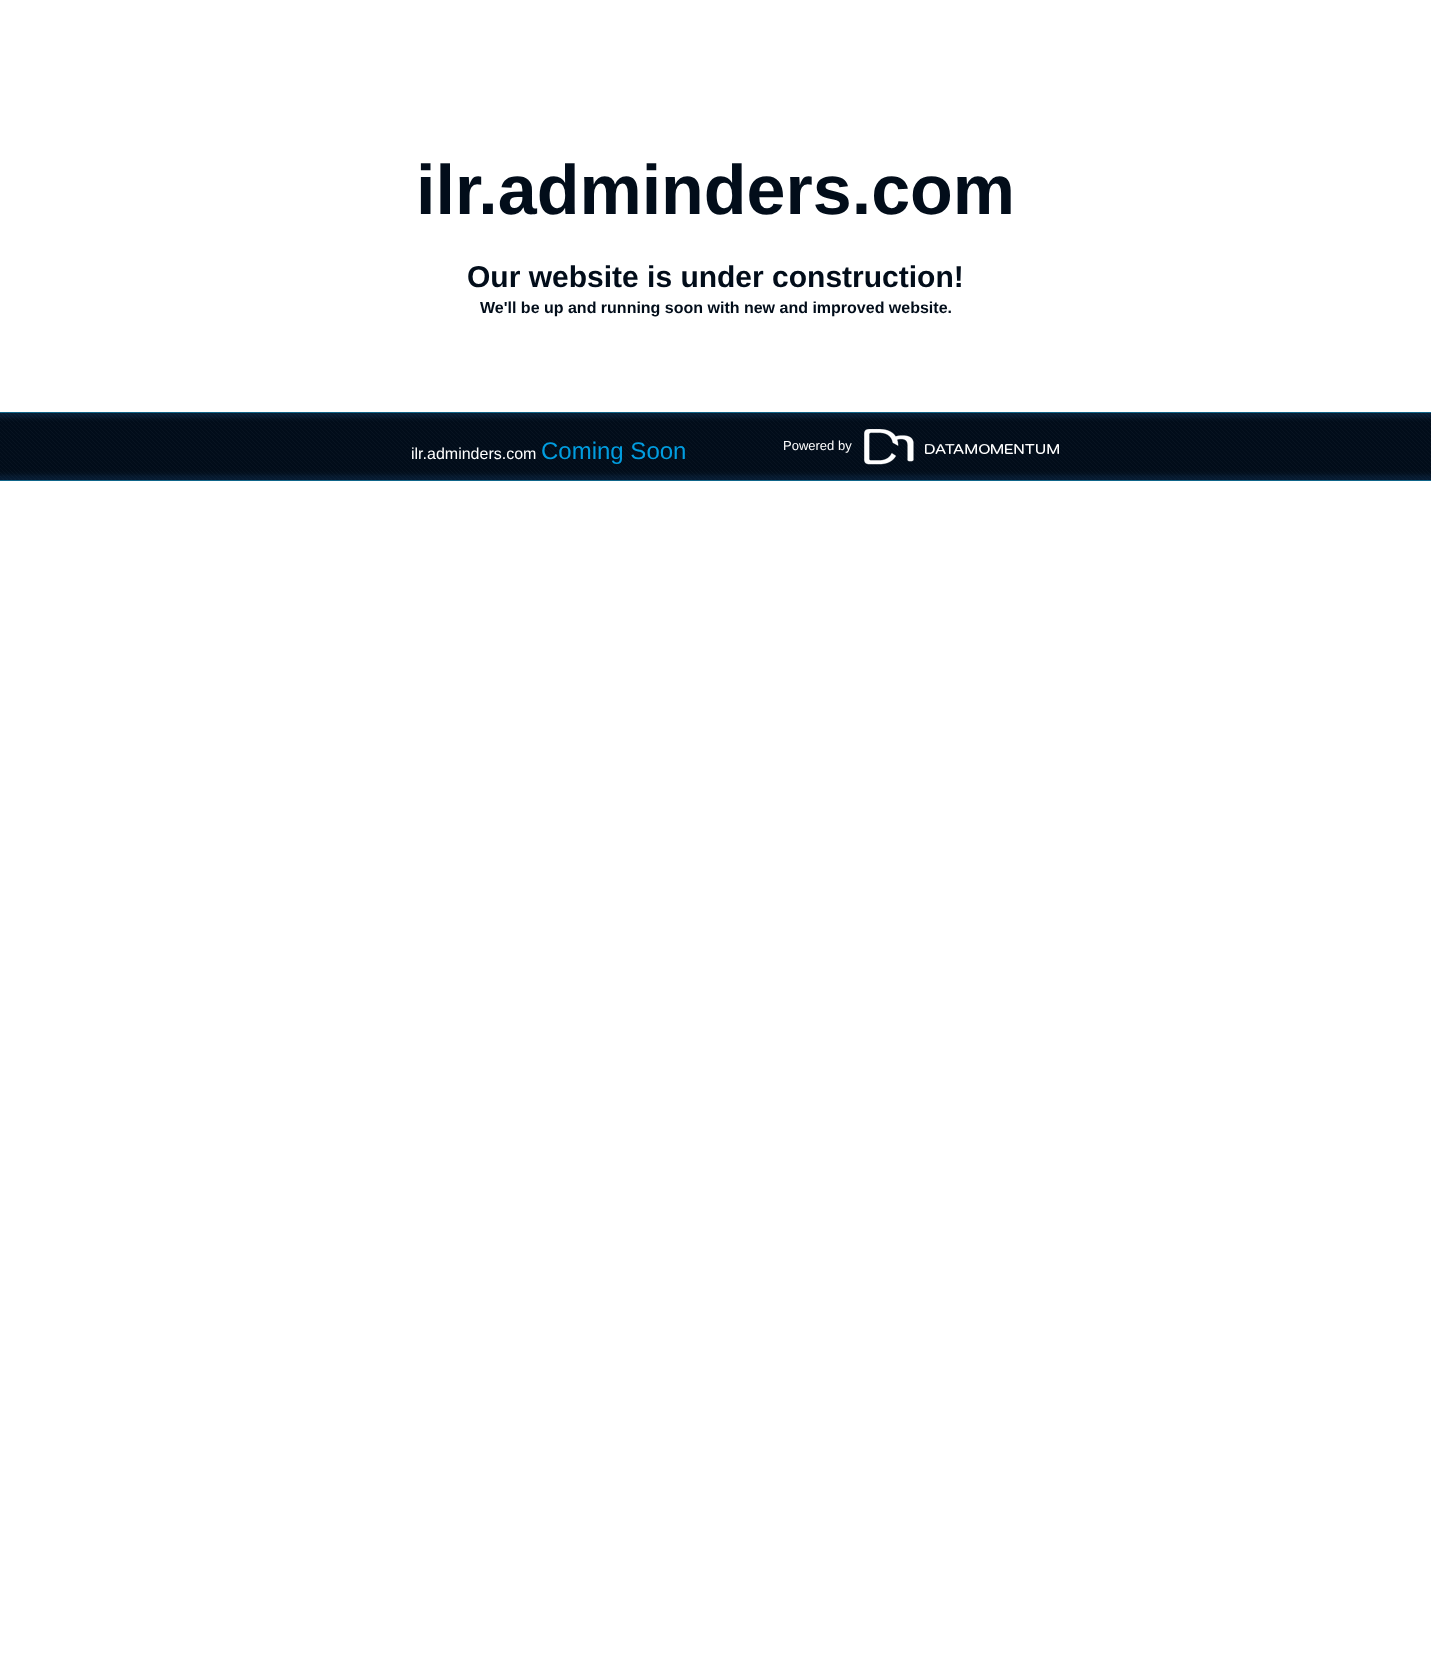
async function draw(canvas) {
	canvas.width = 1431;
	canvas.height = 1653;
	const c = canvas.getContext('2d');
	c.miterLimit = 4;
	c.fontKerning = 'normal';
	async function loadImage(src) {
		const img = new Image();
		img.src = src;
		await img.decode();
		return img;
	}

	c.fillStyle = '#fff';
	c.fillRect(0, 0, 1431, 1653);
	c.font = 'bold 70px Liberation Sans';
	c.fillStyle = '#020d1a';
	c.fillText('ilr.adminders.com', 416, 214);
	c.font = 'bold 30px Liberation Sans';
	c.fillText('Our website is under construction!', 467, 287);
	c.font = 'bold 16px Liberation Sans';
	c.fillText('We\'ll be up and running soon with new and improved website.', 480, 313);
	c.drawImage(await loadImage('img1.png'), 0, 413, 1431, 67);
	c.fillStyle = '#0f6589';
	c.fillRect(0, 412, 1431, 1);
	c.fillRect(0, 480, 1431, 1);
	c.font = '16px Liberation Sans';
	c.fillStyle = '#fff';
	c.fillText('ilr.adminders.com', 411, 459);
	c.font = '24px Liberation Sans';
	c.fillStyle = '#019de0';
	c.fillText('Coming Soon', 541, 459);
	c.font = '13px Liberation Sans';
	c.fillStyle = '#fff';
	c.fillText('Powered by', 783, 450);
	c.drawImage(await loadImage('img2.png'), 864, 429, 195, 36);
}

draw(document.querySelector('canvas'));
